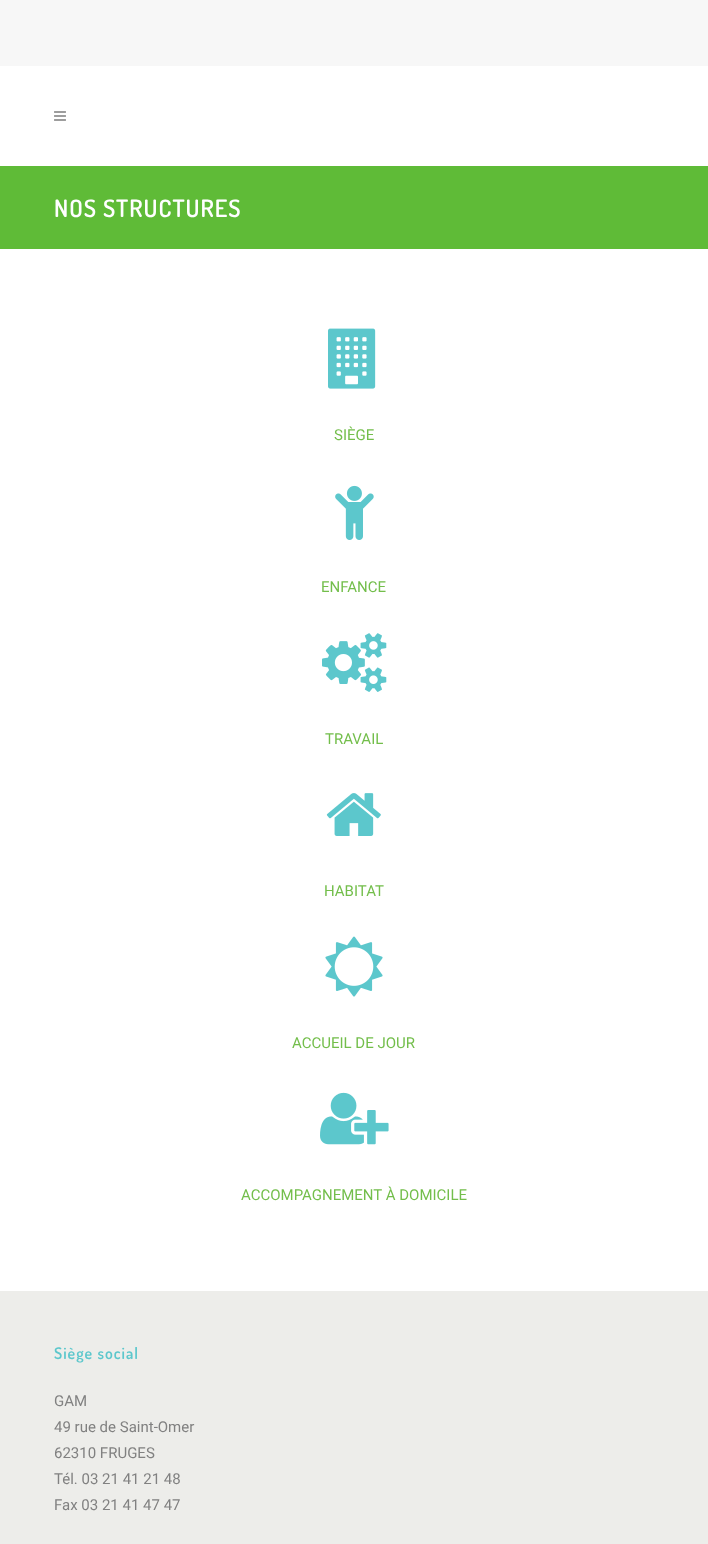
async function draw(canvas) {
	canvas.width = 708;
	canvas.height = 1544;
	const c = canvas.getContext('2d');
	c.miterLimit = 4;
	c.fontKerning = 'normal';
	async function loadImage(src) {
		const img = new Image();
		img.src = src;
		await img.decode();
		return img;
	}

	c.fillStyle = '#fff';
	c.fillRect(0, 0, 708, 1544);
	c.fillStyle = '#f7f7f7';
	c.fillRect(0, 0, 708, 66);
	c.drawImage(await loadImage('img1.png'), 54, 111, 12, 10);
	c.fillStyle = '#5fbb37';
	c.fillRect(0, 166, 708, 83);
	c.letterSpacing = '1px';
	c.font = '600 24px Dosis';
	c.fillStyle = '#fff';
	c.fillText('NOS STRUCTURES', 54, 217);
	c.drawImage(await loadImage('img2.png'), 328, 328, 48, 61);
	c.letterSpacing = '0px';
	c.font = '15px Roboto';
	c.fillStyle = '#73be4b';
	c.fillText('SIÈGE', 334, 440);
	c.drawImage(await loadImage('img3.png'), 335, 485, 39, 55);
	c.fillText('ENFANCE', 321, 592);
	c.drawImage(await loadImage('img4.png'), 322, 633, 65, 59);
	c.fillText('TRAVAIL', 325, 744);
	c.drawImage(await loadImage('img5.png'), 326, 793, 55, 43);
	c.fillText('HABITAT', 324, 896);
	c.drawImage(await loadImage('img6.png'), 325, 936, 58, 61);
	c.fillText('ACCUEIL DE JOUR', 292, 1048);
	c.drawImage(await loadImage('img7.png'), 320, 1092, 69, 53);
	c.fillText('ACCOMPAGNEMENT À DOMICILE', 241, 1200);
	c.fillStyle = '#ededea';
	c.fillRect(0, 1291, 708, 253);
	c.letterSpacing = '1px';
	c.font = '600 16px Dosis';
	c.fillStyle = '#5cc7cc';
	c.fillText('Siège social', 54, 1359);
	c.letterSpacing = '0px';
	c.font = '15px Roboto';
	c.fillStyle = '#818181';
	for (const [text, x, y] of [
		['GAM', 54, 1406],
		['49 rue de Saint-Omer', 54, 1432],
		['62310 FRUGES', 54, 1458],
		['Tél. 03 21 41 21 48', 54, 1484],
		['Fax 03 21 41 47 47', 54, 1510],
	]) {
		c.fillText(text, x, y);
	}
}

draw(document.querySelector('canvas'));
